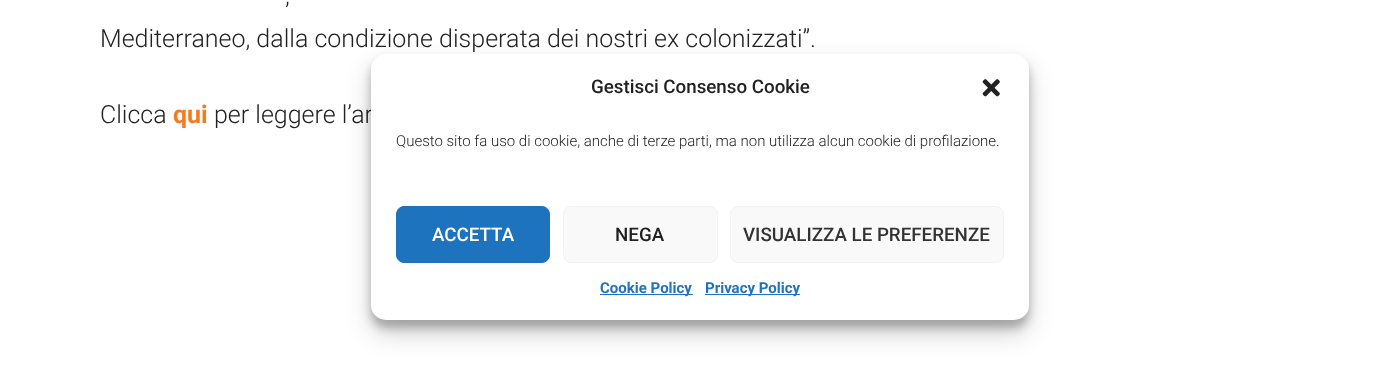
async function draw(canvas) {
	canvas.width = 1400;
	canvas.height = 373;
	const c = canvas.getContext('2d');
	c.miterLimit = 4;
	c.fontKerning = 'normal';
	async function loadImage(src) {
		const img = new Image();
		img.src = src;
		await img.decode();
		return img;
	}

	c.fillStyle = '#fff';
	c.fillRect(0, 0, 1400, 373);
	c.font = '300 25px Roboto';
	c.fillStyle = '#222';
	for (const [text, x, y] of [
		[',', 285, 4],
		['Mediterraneo, dalla condizione disperata dei nostri ex colonizzati”.', 100, 47],
		['Clicca', 100, 123],
	]) {
		c.fillText(text, x, y);
	}
	c.font = 'bold 25px Roboto';
	c.fillStyle = '#f57a20';
	c.fillText('qui', 173, 123);
	c.font = '300 25px Roboto';
	c.fillStyle = '#222';
	c.fillText('per leggere l’ar', 214, 123);
	c.fillStyle = '#0000003b';
	c.filter = 'blur(4px)';
	c.beginPath();
	c.roundRect(371, 61, 658, 267, 15);
	c.fill();
	c.filter = 'none';
	c.fillStyle = '#00000030';
	c.filter = 'blur(12.5px)';
	c.beginPath();
	c.roundRect(371, 66, 658, 267, 15);
	c.fill();
	c.filter = 'none';
	c.fillStyle = '#fff';
	c.beginPath();
	c.roundRect(371, 54, 658, 266, 15);
	c.fill();
	c.font = '500 18.75px Roboto';
	c.fillStyle = '#222';
	c.fillText('Gestisci Consenso Cookie', 591, 93);
	c.drawImage(await loadImage('img1.png'), 982, 79, 18, 18);
	c.font = '300 15px Roboto';
	c.fillText('Questo sito fa uso di cookie, anche di terze parti, ma non utilizza alcun cookie di profilazione.', 396, 146);
	c.fillStyle = '#1e73be';
	c.beginPath();
	c.roundRect(396.5, 206.5, 153, 56, 7.5);
	c.fill();
	c.strokeStyle = '#1e73be';
	c.stroke();
	c.font = '500 18.75px Roboto';
	c.fillStyle = '#fff';
	c.fillText('ACCETTA', 432, 241);
	c.fillStyle = '#f9f9f9';
	c.beginPath();
	c.roundRect(563.5, 206.5, 154, 56, 7.5);
	c.fill();
	c.strokeStyle = '#f2f2f2';
	c.stroke();
	c.fillStyle = '#222';
	c.fillText('NEGA', 615, 241);
	c.fillStyle = '#f9f9f9';
	c.beginPath();
	c.roundRect(730.5, 206.5, 273, 56, 7.5);
	c.fill();
	c.stroke();
	c.fillStyle = '#333';
	c.fillText('VISUALIZZA LE PREFERENZE', 743, 241);
	c.fillStyle = '#1e73be';
	c.fillRect(600, 294, 93, 1);
	c.font = 'bold 15px Roboto';
	c.fillText('Cookie Policy', 600, 293);
	c.fillRect(705, 294, 95, 1);
	c.fillText('Privacy Policy', 705, 293);
}

draw(document.querySelector('canvas'));
